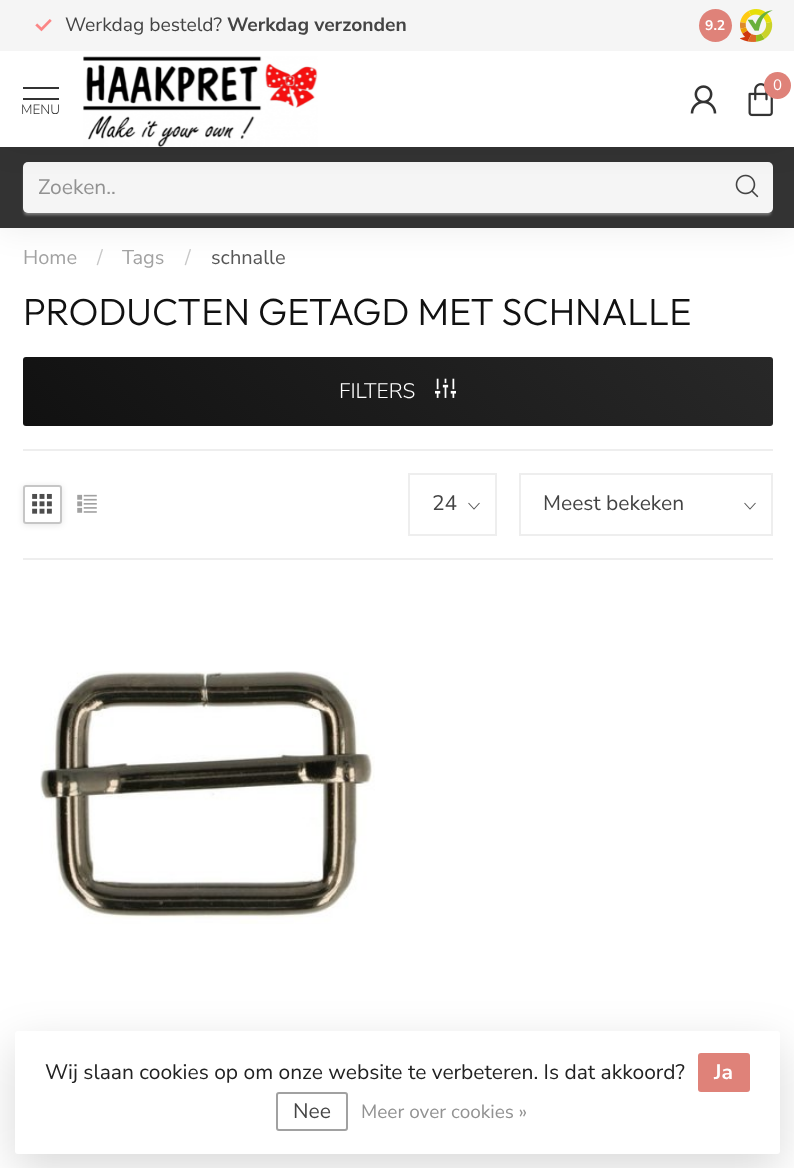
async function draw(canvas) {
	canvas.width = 794;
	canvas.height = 1168;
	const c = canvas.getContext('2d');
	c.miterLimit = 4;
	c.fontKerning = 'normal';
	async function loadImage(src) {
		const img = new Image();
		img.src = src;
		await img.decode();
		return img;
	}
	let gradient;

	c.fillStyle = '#fff';
	c.fillRect(0, 0, 794, 1168);
	c.fillStyle = '#00000014';
	c.filter = 'blur(16.5px)';
	c.beginPath();
	c.rect(0, 147, 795, 81);
	c.fill();
	c.filter = 'none';
	c.fillStyle = '#333';
	c.fillRect(0, 147, 794, 81);
	c.fillStyle = '#9b9b9bbf';
	c.filter = 'blur(1.5px)';
	c.beginPath();
	c.roundRect(24, 167, 747, 48, 3);
	c.fill();
	c.filter = 'none';
	c.fillStyle = '#fff';
	c.beginPath();
	c.roundRect(23, 162, 750, 51, 5);
	c.fill();
	c.fillStyle = '#3333330d';
	c.fillRect(23, 162, 750, 51);
	c.drawImage(await loadImage('img6.png'), 735, 174, 24, 24);
	c.fillStyle = '#00000012';
	c.filter = 'blur(15px)';
	c.beginPath();
	c.rect(0, 0, 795, 147);
	c.fill();
	c.filter = 'none';
	c.fillStyle = '#fff';
	c.fillRect(0, 51, 794, 96);
	c.fillStyle = '#f5f5f5';
	c.fillRect(0, 0, 794, 51);
	c.drawImage(await loadImage('img1.png'), 35, 19, 17, 13);
	c.font = '19.25px Nunito Sans';
	c.fillStyle = '#444';
	c.fillText('Werkdag besteld?', 65, 31);
	c.font = 'bold 19.25px Nunito Sans';
	c.fillText('Werkdag verzonden', 227, 31);
	c.fillStyle = '#df8279';
	c.beginPath();
	c.arc(715.5, 25.5, 16.5, 0, 2 * Math.PI);
	c.fill();
	c.font = 'bold 14px Nunito Sans';
	c.fillStyle = '#fff';
	c.fillText('9.2', 705, 30);
	c.drawImage(await loadImage('img2.png'), 740, 9, 33, 33);
	c.drawImage(await loadImage('img3.png'), 83, 56, 235, 91);
	c.drawImage(await loadImage('img4.png'), 690, 85, 27, 29);
	c.drawImage(await loadImage('img5.png'), 748, 83, 25, 34);
	c.fillStyle = '#df8279';
	c.beginPath();
	c.arc(777.5, 85.5, 13.5, 0, 2 * Math.PI);
	c.fill();
	c.font = '15px Nunito Sans';
	c.fillStyle = '#fff';
	c.fillText('0', 773, 90);
	c.fillStyle = '#333';
	c.fillRect(23, 87, 36, 2);
	c.fillRect(23, 98, 36, 2);
	c.font = '300 13.5px Nunito Sans';
	c.fillText('MENU', 21, 114);
	c.font = '21px Nunito Sans';
	c.fillStyle = '#929292';
	c.fillText('Zoeken..', 38, 194);
	c.font = '20px Nunito Sans';
	c.fillStyle = '#a2a2a2';
	c.fillText('Home', 23, 264);
	c.fillStyle = '#c7c7c7';
	c.fillText('/', 97, 264);
	c.fillStyle = '#a2a2a2';
	c.fillText('Tags', 122, 264);
	c.fillStyle = '#c7c7c7';
	c.fillText('/', 185, 264);
	c.fillStyle = '#575757';
	c.fillText('schnalle', 211, 264);
	c.font = '300 37.75px Outfit';
	c.fillStyle = '#111';
	c.fillText('PRODUCTEN GETAGD MET SCHNALLE', 23, 325);
	gradient = c.createLinearGradient(193, 596, 602, 187);
	gradient.addColorStop(0, '#111');
	gradient.addColorStop(1, '#282828');
	c.fillStyle = gradient;
	c.beginPath();
	c.roundRect(23, 357, 750, 69, 3);
	c.fill();
	c.font = '300 21px Nunito Sans';
	c.fillStyle = '#fff';
	c.fillText('FILTERS', 339, 398);
	c.drawImage(await loadImage('img7.png'), 435, 378, 21, 20);
	c.fillStyle = '#eee';
	c.fillRect(23, 449, 750, 2);
	c.fillRect(23, 558, 750, 2);
	c.save();
	c.beginPath();
	c.moveTo(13, 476);
	c.lineTo(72, 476);
	c.lineTo(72, 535);
	c.lineTo(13, 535);
	c.closePath();
	c.moveTo(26, 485);
	c.lineTo(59, 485);
	c.bezierCurveTo(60.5, 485, 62, 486.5, 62, 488);
	c.lineTo(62, 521);
	c.bezierCurveTo(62, 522.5, 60.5, 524, 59, 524);
	c.lineTo(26, 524);
	c.bezierCurveTo(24.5, 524, 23, 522.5, 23, 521);
	c.lineTo(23, 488);
	c.bezierCurveTo(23, 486.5, 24.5, 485, 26, 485);
	c.closePath();
	c.clip('evenodd');
	c.fillStyle = '#0000001a';
	c.filter = 'blur(3px)';
	c.beginPath();
	c.roundRect(23, 486, 39, 39, 3);
	c.fill();
	c.filter = 'none';
	c.restore();
	c.beginPath();
	c.roundRect(24, 486, 37, 37, 2);
	c.strokeStyle = '#c6c6c6';
	c.lineWidth = 2;
	c.stroke();
	c.drawImage(await loadImage('img8.png'), 32, 493, 20, 21);
	c.drawImage(await loadImage('img9.png'), 77, 494, 20, 19);
	c.beginPath();
	c.moveTo(479.5, 503);
	c.lineTo(474, 509);
	c.lineTo(468.5, 503);
	c.strokeStyle = '#595959';
	c.lineWidth = 1.1;
	c.stroke();
	c.strokeStyle = '#eee';
	c.lineWidth = 2;
	c.strokeRect(409, 474, 87, 61);
	c.font = '21px Nunito Sans';
	c.fillStyle = '#444';
	c.fillText('24', 432, 510);
	c.beginPath();
	c.moveTo(755.5, 503);
	c.lineTo(750, 509);
	c.lineTo(744.5, 503);
	c.strokeStyle = '#595959';
	c.lineWidth = 1.1;
	c.stroke();
	c.strokeStyle = '#eee';
	c.lineWidth = 2;
	c.strokeRect(520, 474, 252, 61);
	c.fillText('Meest bekeken', 543, 510);
	c.drawImage(await loadImage('img10.png'), 40, 671, 335, 253);
	c.fillStyle = '#00000026';
	c.filter = 'blur(22.5px)';
	c.beginPath();
	c.roundRect(15, 1046, 765, 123, 3);
	c.fill();
	c.filter = 'none';
	c.fillStyle = '#fff';
	c.beginPath();
	c.roundRect(15, 1031, 765, 123, 3);
	c.fill();
	c.fillStyle = '#222';
	c.fillText('Wij slaan cookies op om onze website te verbeteren. Is dat akkoord?', 45, 1079);
	c.fillStyle = '#df8279';
	c.beginPath();
	c.roundRect(698, 1053, 52, 39, 3);
	c.fill();
	c.font = 'bold 21px Nunito Sans';
	c.fillStyle = '#fff';
	c.fillText('Ja', 714, 1079);
	c.beginPath();
	c.roundRect(277, 1093, 70, 37, 2);
	c.strokeStyle = '#a1a1a1';
	c.stroke();
	c.font = '21px Nunito Sans';
	c.fillStyle = '#444';
	c.fillText('Nee', 293, 1118);
	c.font = '19px Nunito Sans';
	c.fillStyle = '#929292';
	c.fillText('Meer over cookies »', 361, 1118);
}

draw(document.querySelector('canvas'));
